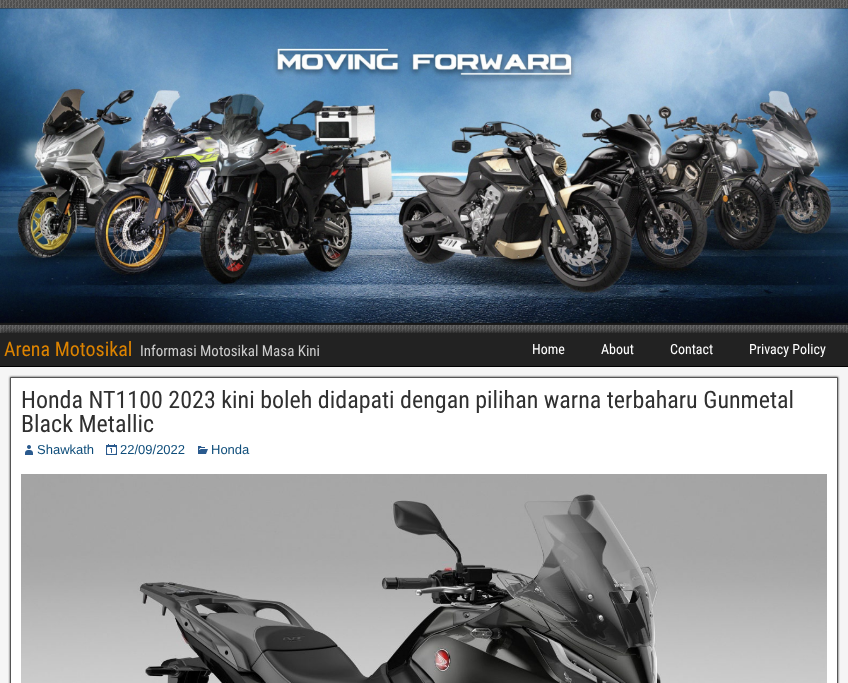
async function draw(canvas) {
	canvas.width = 848;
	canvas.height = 683;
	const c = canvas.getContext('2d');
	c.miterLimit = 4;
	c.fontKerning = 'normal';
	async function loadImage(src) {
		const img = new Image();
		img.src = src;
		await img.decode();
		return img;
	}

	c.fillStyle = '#505050';
	c.fillRect(0, 0, 848, 683);
	c.drawImage(await loadImage('img1.png'), 0, 0, 848, 333);
	c.fillStyle = '#000';
	c.filter = 'blur(3px)';
	c.beginPath();
	c.rect(0, 333, 848, 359);
	c.fill();
	c.filter = 'none';
	c.drawImage(await loadImage('img2.png'), 0, 8, 848, 317);
	c.fillStyle = '#222';
	c.fillRect(0, 333, 848, 33);
	c.fillStyle = '#000';
	c.fillRect(0, 366, 848, 1);
	c.font = '20px Roboto Condensed';
	c.fillStyle = '#dc8300';
	c.fillText('Arena Motosikal', 4, 356);
	c.font = '15px Roboto Condensed';
	c.fillStyle = '#ccc';
	c.fillText('Informasi Motosikal Masa Kini', 140, 356);
	c.font = '14px Roboto Condensed';
	c.fillStyle = '#fff';
	for (const [text, x, y] of [
		['Home', 532, 354],
		['About', 601, 354],
		['Contact', 670, 354],
		['Privacy Policy', 749, 354],
	]) {
		c.fillText(text, x, y);
	}
	c.fillStyle = '#f5f5f5';
	c.fillRect(0, 367, 848, 316);
	c.fillStyle = '#333';
	c.filter = 'blur(1px)';
	c.beginPath();
	c.rect(10, 377, 828, 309);
	c.fill();
	c.filter = 'none';
	c.fillStyle = '#fff';
	c.beginPath();
	c.rect(10.5, 377.5, 827, 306);
	c.fill();
	c.strokeStyle = '#555';
	c.stroke();
	c.font = '24px Roboto Condensed';
	c.fillStyle = '#303030';
	c.fillText('Honda NT1100 2023 kini boleh didapati dengan pilihan warna terbaharu Gunmetal', 21, 408);
	c.fillText('Black Metallic', 21, 432);
	c.drawImage(await loadImage('img3.png'), 25, 445, 8, 10);
	c.font = '13px Liberation Sans';
	c.fillStyle = '#0e4d7a';
	c.fillText('Shawkath', 37, 454);
	c.drawImage(await loadImage('img4.png'), 106, 444, 11, 11);
	c.fillText('22/09/2022', 120, 454);
	c.drawImage(await loadImage('img5.png'), 198, 446, 10, 8);
	c.fillText('Honda', 211, 454);
	c.drawImage(await loadImage('img6.png'), 21, 474, 806, 209);
}

draw(document.querySelector('canvas'));
